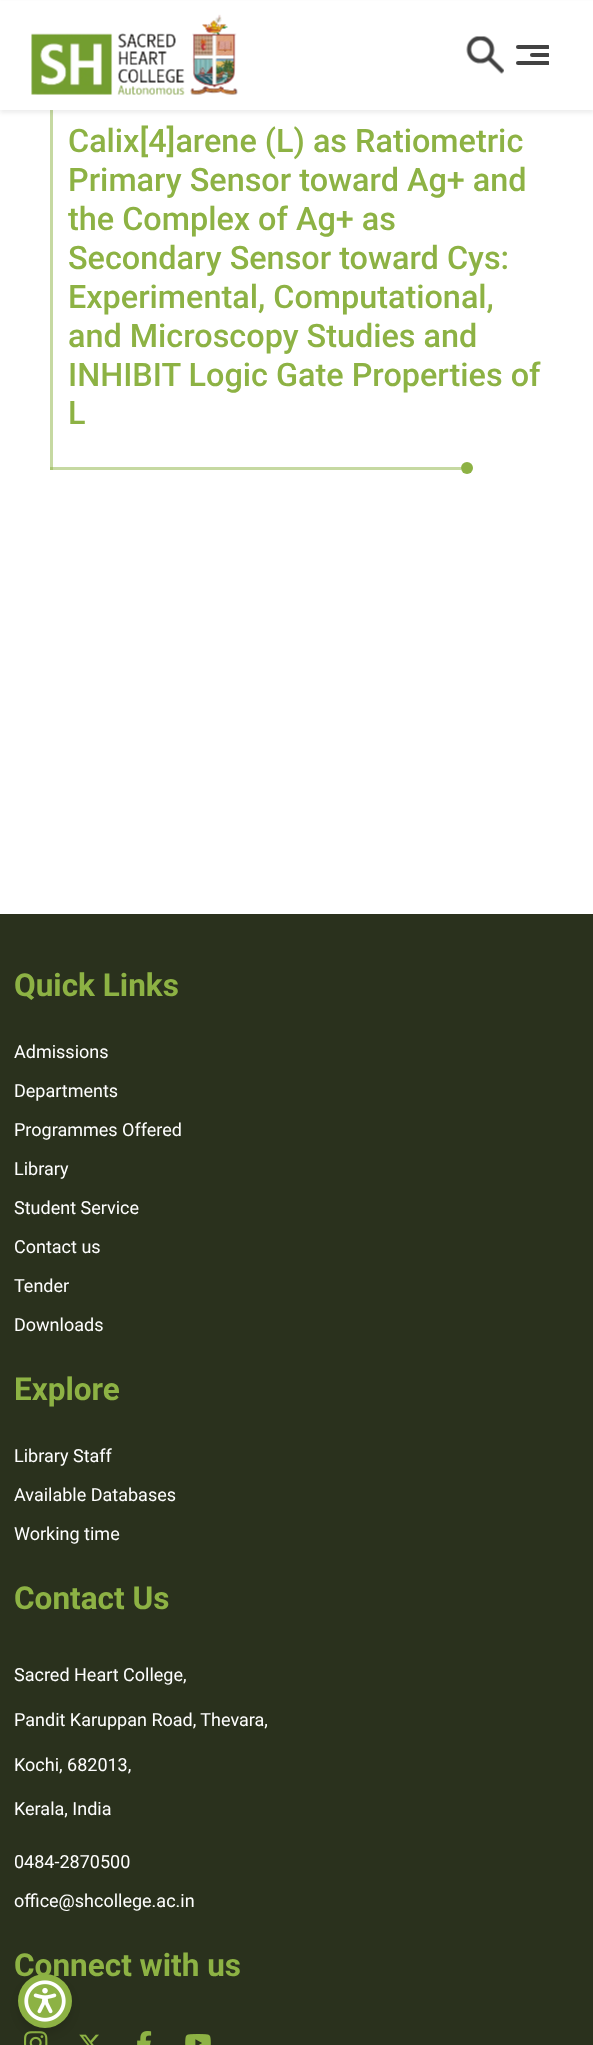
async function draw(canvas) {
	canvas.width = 593;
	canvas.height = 2045;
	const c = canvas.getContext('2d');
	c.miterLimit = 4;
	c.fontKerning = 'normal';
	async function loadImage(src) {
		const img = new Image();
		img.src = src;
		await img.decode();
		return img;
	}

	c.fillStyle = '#fff';
	c.fillRect(0, 0, 593, 2045);
	c.fillStyle = '#c6d9a2';
	c.fillRect(50, 467, 411, 3);
	c.fillRect(50, 110, 3, 360);
	c.fillStyle = '#00000012';
	c.filter = 'blur(2px)';
	c.beginPath();
	c.rect(0, 3, 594, 110);
	c.fill();
	c.filter = 'none';
	c.fillStyle = '#fff';
	c.fillRect(0, 1, 593, 109);
	c.drawImage(await loadImage('img1.png'), 31, 14, 207, 81);
	c.drawImage(await loadImage('img2.png'), 466, 36, 38, 38);
	c.save();
	c.beginPath();
	c.rect(516, 45, 33, 20);
	c.clip();
	c.fillStyle = '#424242';
	c.beginPath();
	c.roundRect(516, 45, 34, 4, 2);
	c.fill();
	c.beginPath();
	c.roundRect(530, 53, 20, 4, 2);
	c.fill();
	c.beginPath();
	c.roundRect(516, 61, 34, 4, 2);
	c.fill();
	c.restore();
	c.fillStyle = '#aac673';
	c.fillRect(50, 467, 3, 3);
	c.font = '500 32.4px Roboto';
	c.fillStyle = '#8db244';
	for (const [text, x, y] of [
		['Calix[4]arene (L) as Ratiometric', 68, 152],
		['Primary Sensor toward Ag+ and', 68, 191],
		['the Complex of Ag+ as', 68, 230],
		['Secondary Sensor toward Cys:', 68, 269],
		['Experimental, Computational,', 68, 308],
		['and Microscopy Studies and', 68, 347],
		['INHIBIT Logic Gate Properties of', 68, 386],
		['L', 68, 424],
	]) {
		c.fillText(text, x, y);
	}
	c.beginPath();
	c.arc(467, 468, 6, 0, 2 * Math.PI);
	c.fill();
	c.fillStyle = '#2a311d';
	c.fillRect(0, 914, 593, 1131);
	c.font = 'bold 31.5px Roboto';
	c.fillStyle = '#8db244';
	c.fillText('Quick Links', 14, 996);
	c.font = '18px Roboto';
	c.fillStyle = '#fff';
	for (const [text, x, y] of [
		['Admissions', 14, 1058],
		['Departments', 14, 1097],
		['Programmes Offered', 14, 1136],
		['Library', 14, 1175],
		['Student Service', 14, 1214],
		['Contact us', 14, 1253],
		['Tender', 14, 1292],
		['Downloads', 14, 1331],
	]) {
		c.fillText(text, x, y);
	}
	c.font = 'bold 31.5px Roboto';
	c.fillStyle = '#8db244';
	c.fillText('Explore', 14, 1400);
	c.font = '18px Roboto';
	c.fillStyle = '#fff';
	for (const [text, x, y] of [
		['Library Staff', 14, 1462],
		['Available Databases', 14, 1501],
		['Working time', 14, 1540],
	]) {
		c.fillText(text, x, y);
	}
	c.font = 'bold 31.5px Roboto';
	c.fillStyle = '#8db244';
	c.fillText('Contact Us', 14, 1609);
	c.font = '18px Roboto';
	c.fillStyle = '#fff';
	for (const [text, x, y] of [
		['Sacred Heart College,', 14, 1681],
		['Pandit Karuppan Road, Thevara,', 14, 1726],
		['Kochi, 682013,', 14, 1771],
		['Kerala, India', 14, 1815],
		['0484-2870500', 14, 1868],
		['office@shcollege.ac.in', 14, 1907],
	]) {
		c.fillText(text, x, y);
	}
	c.font = 'bold 31.5px Roboto';
	c.fillStyle = '#8db244';
	c.fillText('Connect with us', 14, 1976);
	c.drawImage(await loadImage('img3.png'), 24, 2031, 24, 14);
	c.drawImage(await loadImage('img4.png'), 79, 2034, 20, 11);
	c.drawImage(await loadImage('img5.png'), 137, 2031, 15, 14);
	c.drawImage(await loadImage('img6.png'), 185, 2034, 26, 11);
	c.fillStyle = '#0000001a';
	c.filter = 'blur(4.5px)';
	c.beginPath();
	c.roundRect(18, 1980, 54, 54, 27);
	c.fill();
	c.filter = 'none';
	c.fillStyle = '#8db244';
	c.beginPath();
	c.arc(45, 2001, 27, 0, 2 * Math.PI);
	c.fill();
	c.drawImage(await loadImage('img7.png'), 24, 1980, 42, 42);
}

draw(document.querySelector('canvas'));
